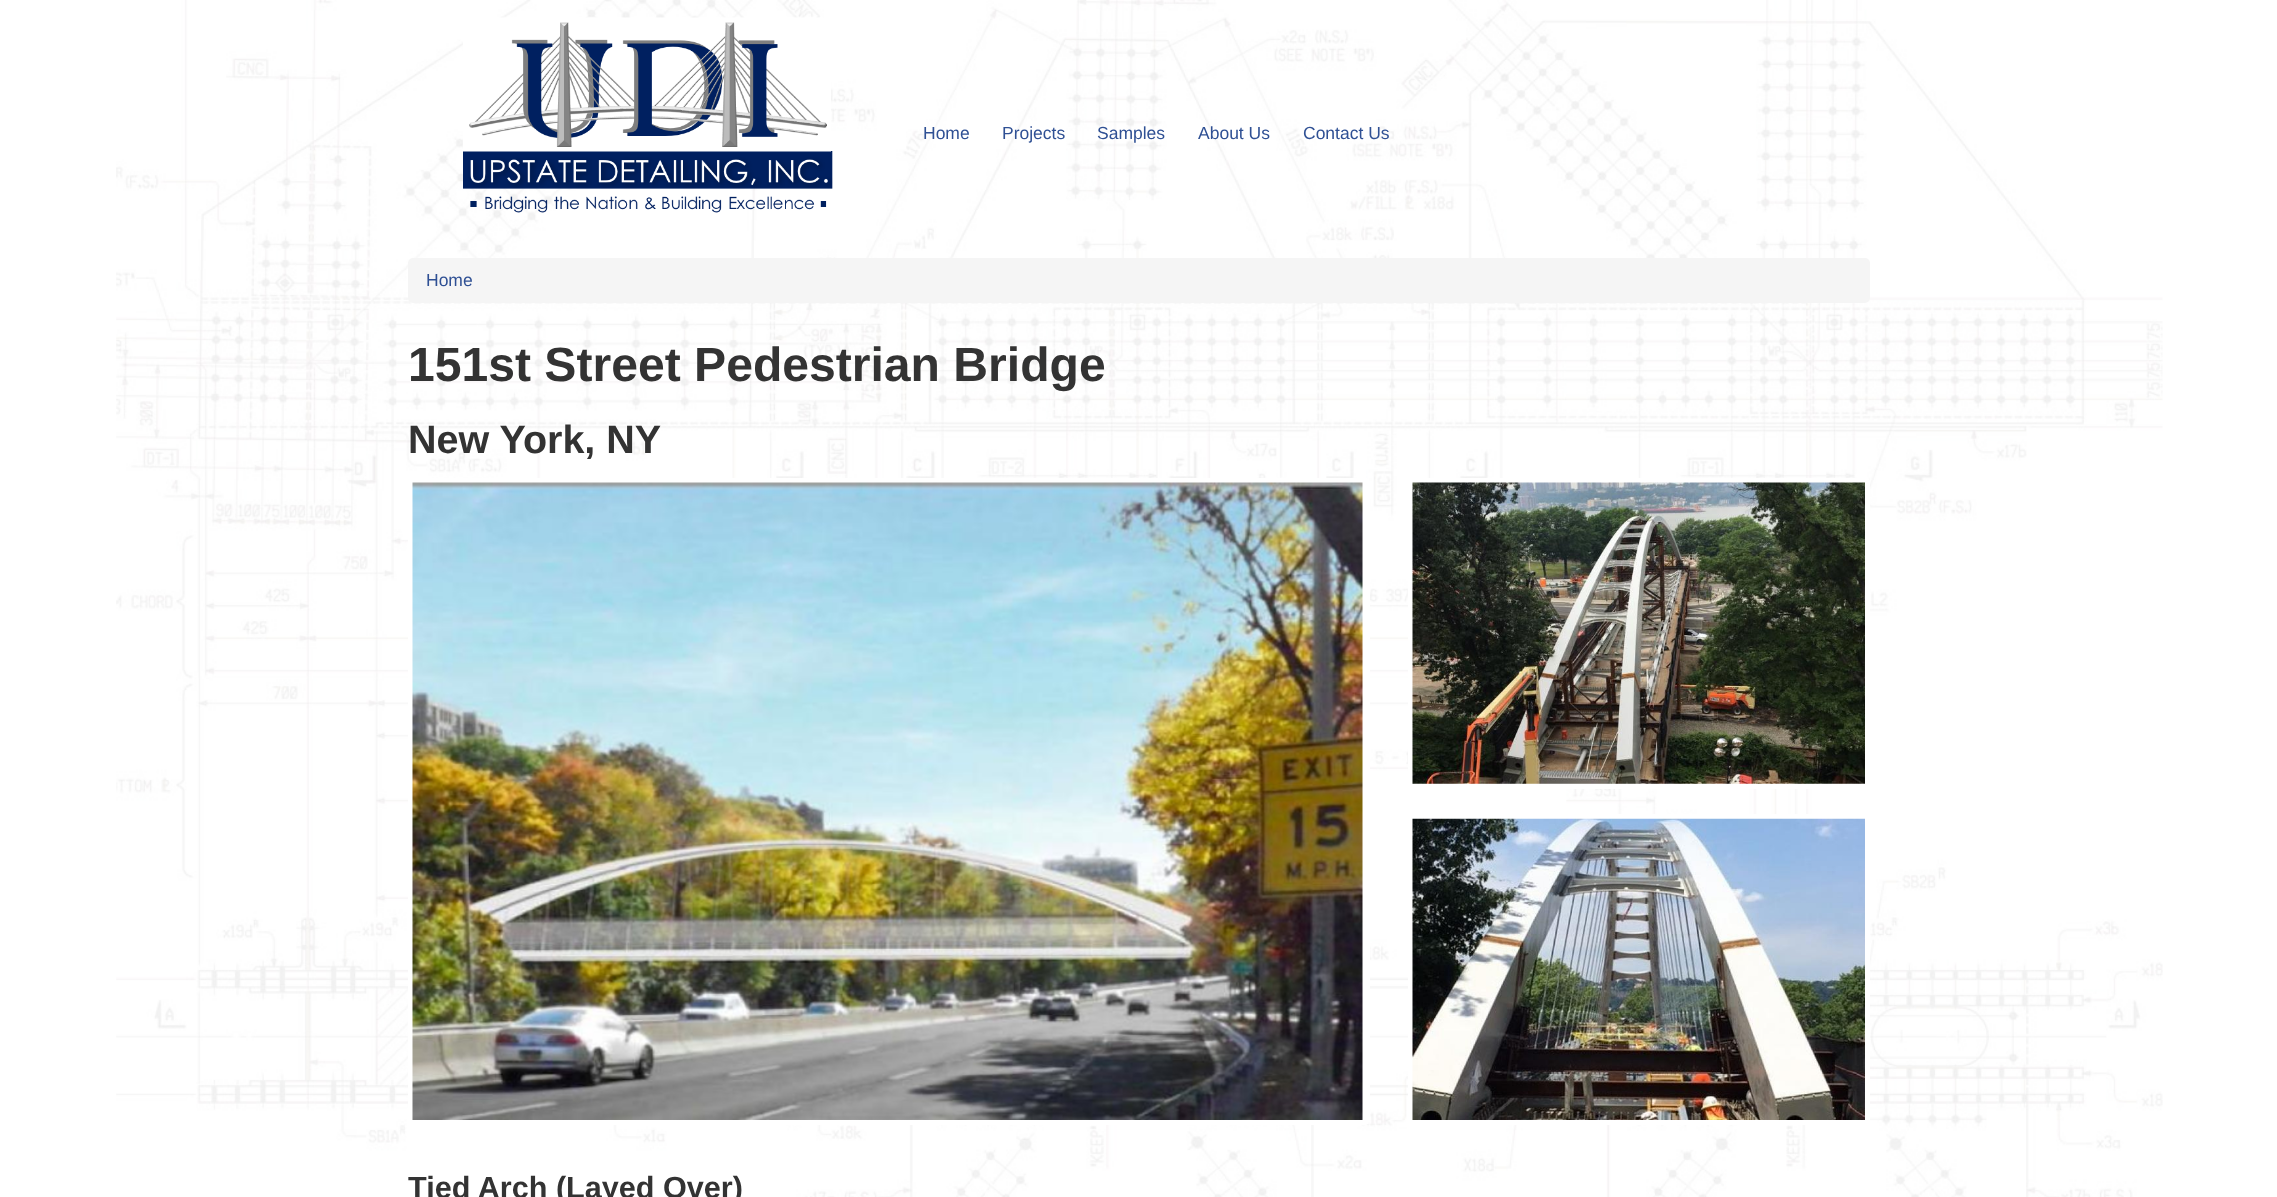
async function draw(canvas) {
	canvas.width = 2277;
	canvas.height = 1197;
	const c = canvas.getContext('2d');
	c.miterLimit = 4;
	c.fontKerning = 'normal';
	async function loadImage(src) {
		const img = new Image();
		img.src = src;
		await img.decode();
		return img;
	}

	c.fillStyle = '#fff';
	c.fillRect(0, 0, 2277, 1197);
	c.drawImage(await loadImage('img1.png'), 116, 0, 2047, 1197);
	c.drawImage(await loadImage('img2.png'), 463, 17, 370, 196);
	c.font = '17.5px Liberation Sans';
	c.fillStyle = '#2f5094';
	for (const [text, x, y] of [
		['Home', 923, 139],
		['Projects', 1002, 139],
		['Samples', 1097, 139],
		['About Us', 1198, 139],
		['Contact Us', 1303, 139],
	]) {
		c.fillText(text, x, y);
	}
	c.fillStyle = '#f5f5f5';
	c.beginPath();
	c.roundRect(408, 258, 1462, 45, 5);
	c.fill();
	c.fillStyle = '#2f5094';
	c.fillText('Home', 426, 286);
	c.font = 'bold 48.1px Liberation Sans';
	c.fillStyle = '#333';
	c.fillText('151st Street Pedestrian Bridge', 408, 381);
	c.font = 'bold 39.5px Liberation Sans';
	c.fillText('New York, NY', 408, 453);
	c.fillStyle = '#fff';
	c.beginPath();
	c.roundRect(408, 478, 962, 647, 5);
	c.fill();
	c.drawImage(await loadImage('img3.png'), 412, 482, 951, 638);
	c.beginPath();
	c.roundRect(1408, 478, 462, 311, 5);
	c.fill();
	c.drawImage(await loadImage('img4.png'), 1412, 482, 453, 302);
	c.beginPath();
	c.roundRect(1408, 814, 462, 311, 5);
	c.fill();
	c.drawImage(await loadImage('img5.png'), 1412, 818, 453, 302);
	c.font = 'bold 30.6px Liberation Sans';
	c.fillStyle = '#333';
	c.fillText('Tied Arch (Layed Over)', 408, 1198);
}

draw(document.querySelector('canvas'));
